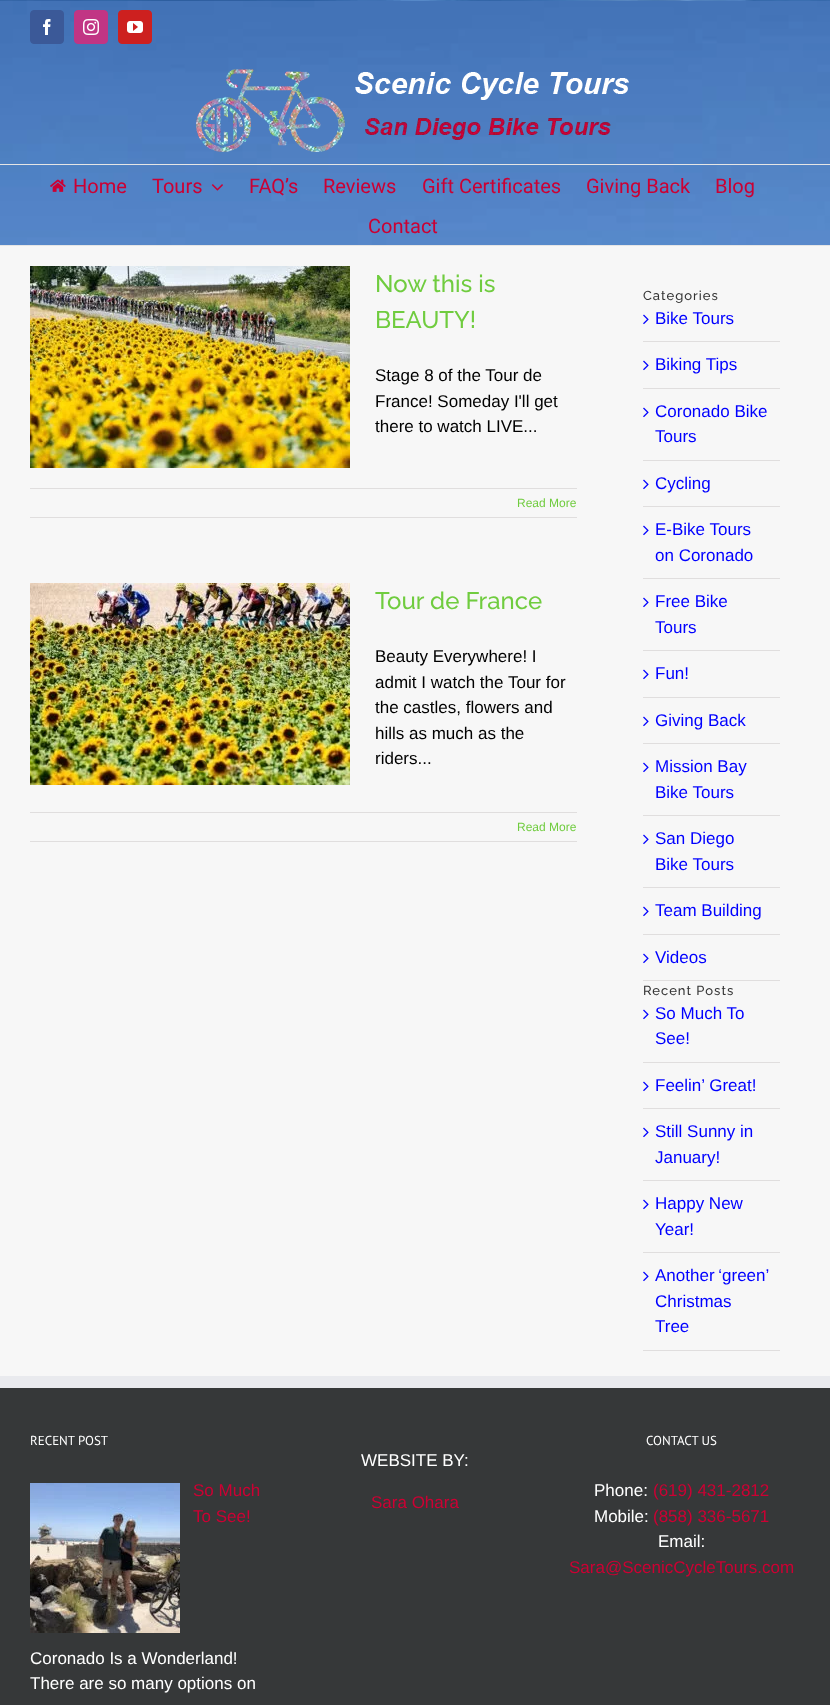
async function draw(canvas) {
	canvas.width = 830;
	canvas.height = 1705;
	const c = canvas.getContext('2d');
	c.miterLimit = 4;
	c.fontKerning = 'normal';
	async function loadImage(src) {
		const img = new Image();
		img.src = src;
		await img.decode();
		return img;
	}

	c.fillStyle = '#fff';
	c.fillRect(0, 0, 830, 1705);
	c.drawImage(await loadImage('img1.png'), 0, 0, 830, 245);
	c.fillStyle = '#3b5998';
	c.beginPath();
	c.roundRect(30.5, 10.5, 33, 33, 3.5);
	c.fill();
	c.strokeStyle = '#3b5998';
	c.stroke();
	c.drawImage(await loadImage('img2.png'), 43, 19, 8, 16);
	c.fillStyle = '#c13584';
	c.beginPath();
	c.roundRect(74.5, 10.5, 33, 33, 3.5);
	c.fill();
	c.strokeStyle = '#c13584';
	c.stroke();
	c.drawImage(await loadImage('img3.png'), 83, 19, 16, 16);
	c.fillStyle = '#cd201f';
	c.beginPath();
	c.roundRect(118.5, 10.5, 33, 33, 3.5);
	c.fill();
	c.strokeStyle = '#cd201f';
	c.stroke();
	c.drawImage(await loadImage('img4.png'), 127, 21, 16, 12);
	c.fillStyle = '#e5e5e5';
	c.fillRect(0, 164, 830, 1);
	c.drawImage(await loadImage('img5.png'), 196, 69, 433, 83);
	c.fillRect(0, 245, 830, 1);
	c.drawImage(await loadImage('img6.png'), 50, 179, 16, 13);
	c.font = '20px Roboto';
	c.fillStyle = '#c03';
	c.fillText('Home', 73, 193);
	c.fillText('Tours', 152, 193);
	c.drawImage(await loadImage('img7.png'), 211, 184, 12, 7);
	for (const [text, x, y] of [
		['FAQ’s', 249, 193],
		['Reviews', 323, 193],
		['Gift Certificates', 422, 193],
		['Giving Back', 586, 193],
		['Blog', 715, 193],
		['Contact', 368, 233],
	]) {
		c.fillText(text, x, y);
	}
	c.fillStyle = '#f7f7f7';
	c.fillRect(0, 246, 830, 1130);
	c.drawImage(await loadImage('img8.png'), 30, 266, 320, 202);
	c.font = '500 24px Raleway';
	c.fillStyle = '#70cc3f';
	c.fillText('Now this is', 375, 292);
	c.fillText('BEAUTY!', 375, 328);
	c.font = '17px Liberation Sans';
	c.fillStyle = '#000';
	for (const [text, x, y] of [
		['Stage 8 of the Tour de', 375, 381],
		['France! Someday I\'ll get', 375, 407],
		['there to watch LIVE...', 375, 432],
	]) {
		c.fillText(text, x, y);
	}
	c.fillStyle = '#e0dede';
	c.fillRect(30, 488, 547, 1);
	c.fillRect(30, 517, 547, 1);
	c.font = '12px Liberation Sans';
	c.fillStyle = '#70cc3f';
	c.fillText('Read More', 517, 507);
	c.drawImage(await loadImage('img9.png'), 30, 583, 320, 202);
	c.fillStyle = '#00000099';
	c.beginPath();
	c.arc(178.5, 765.5, 5.5, 0, 2 * Math.PI);
	c.fill();
	c.fillStyle = '#00000080';
	c.beginPath();
	c.arc(201.5, 765.5, 5.5, 0, 2 * Math.PI);
	c.fill();
	c.font = '500 24px Raleway';
	c.fillStyle = '#70cc3f';
	c.fillText('Tour de France', 375, 609);
	c.font = '17px Liberation Sans';
	c.fillStyle = '#000';
	for (const [text, x, y] of [
		['Beauty Everywhere! I', 375, 662],
		['admit I watch the Tour for', 375, 688],
		['the castles, flowers and', 375, 713],
		['hills as much as the', 375, 739],
		['riders...', 375, 764],
	]) {
		c.fillText(text, x, y);
	}
	c.fillStyle = '#e0dede';
	c.fillRect(30, 812, 547, 1);
	c.fillRect(30, 841, 547, 1);
	c.font = '12px Liberation Sans';
	c.fillStyle = '#70cc3f';
	c.fillText('Read More', 517, 831);
	c.letterSpacing = '1px';
	c.font = '500 13px Raleway';
	c.fillStyle = '#333';
	c.fillText('Categories', 643, 300);
	c.fillStyle = '#e0dede';
	c.fillRect(643, 341, 137, 1);
	c.drawImage(await loadImage('img10.png'), 643, 314, 6, 11);
	c.letterSpacing = '0px';
	c.font = '17px Liberation Sans';
	c.fillStyle = '#00f';
	c.fillText('Bike Tours', 655, 324);
	c.fillStyle = '#e0dede';
	c.fillRect(643, 388, 137, 1);
	c.drawImage(await loadImage('img10.png'), 643, 360, 6, 11);
	c.fillStyle = '#00f';
	c.fillText('Biking Tips', 655, 370);
	c.fillStyle = '#e0dede';
	c.fillRect(643, 460, 137, 1);
	c.drawImage(await loadImage('img10.png'), 643, 407, 6, 11);
	c.fillStyle = '#00f';
	c.fillText('Coronado Bike', 655, 417);
	c.fillText('Tours', 655, 442);
	c.fillStyle = '#e0dede';
	c.fillRect(643, 506, 137, 1);
	c.drawImage(await loadImage('img10.png'), 643, 479, 6, 11);
	c.fillStyle = '#00f';
	c.fillText('Cycling', 655, 489);
	c.fillStyle = '#e0dede';
	c.fillRect(643, 578, 137, 1);
	c.drawImage(await loadImage('img10.png'), 643, 525, 6, 11);
	c.fillStyle = '#00f';
	c.fillText('E-Bike Tours', 655, 535);
	c.fillText('on Coronado', 655, 561);
	c.fillStyle = '#e0dede';
	c.fillRect(643, 650, 137, 1);
	c.drawImage(await loadImage('img10.png'), 643, 597, 6, 11);
	c.fillStyle = '#00f';
	c.fillText('Free Bike', 655, 607);
	c.fillText('Tours', 655, 633);
	c.fillStyle = '#e0dede';
	c.fillRect(643, 697, 137, 1);
	c.drawImage(await loadImage('img10.png'), 643, 669, 6, 11);
	c.fillStyle = '#00f';
	c.fillText('Fun!', 655, 679);
	c.fillStyle = '#e0dede';
	c.fillRect(643, 743, 137, 1);
	c.drawImage(await loadImage('img10.png'), 643, 716, 6, 11);
	c.fillStyle = '#00f';
	c.fillText('Giving Back', 655, 726);
	c.fillStyle = '#e0dede';
	c.fillRect(643, 815, 137, 1);
	c.drawImage(await loadImage('img10.png'), 643, 762, 6, 11);
	c.fillStyle = '#00f';
	c.fillText('Mission Bay', 655, 772);
	c.fillText('Bike Tours', 655, 798);
	c.fillStyle = '#e0dede';
	c.fillRect(643, 887, 137, 1);
	c.drawImage(await loadImage('img10.png'), 643, 834, 6, 11);
	c.fillStyle = '#00f';
	c.fillText('San Diego', 655, 844);
	c.fillText('Bike Tours', 655, 870);
	c.fillStyle = '#e0dede';
	c.fillRect(643, 934, 137, 1);
	c.drawImage(await loadImage('img10.png'), 643, 906, 6, 11);
	c.fillStyle = '#00f';
	c.fillText('Team Building', 655, 916);
	c.fillStyle = '#e0dede';
	c.fillRect(643, 980, 137, 1);
	c.drawImage(await loadImage('img10.png'), 643, 953, 6, 11);
	c.fillStyle = '#00f';
	c.fillText('Videos', 655, 963);
	c.letterSpacing = '1px';
	c.font = '500 13px Raleway';
	c.fillStyle = '#333';
	c.fillText('Recent Posts', 643, 995);
	c.fillStyle = '#e0dede';
	c.fillRect(643, 1062, 137, 1);
	c.drawImage(await loadImage('img10.png'), 643, 1009, 6, 11);
	c.letterSpacing = '0px';
	c.font = '17px Liberation Sans';
	c.fillStyle = '#00f';
	c.fillText('So Much To', 655, 1019);
	c.fillText('See!', 655, 1044);
	c.fillStyle = '#e0dede';
	c.fillRect(643, 1108, 137, 1);
	c.drawImage(await loadImage('img10.png'), 643, 1081, 6, 11);
	c.fillStyle = '#00f';
	c.fillText('Feelin’ Great!', 655, 1091);
	c.fillStyle = '#e0dede';
	c.fillRect(643, 1180, 137, 1);
	c.drawImage(await loadImage('img10.png'), 643, 1127, 6, 11);
	c.fillStyle = '#00f';
	c.fillText('Still Sunny in', 655, 1137);
	c.fillText('January!', 655, 1163);
	c.fillStyle = '#e0dede';
	c.fillRect(643, 1252, 137, 1);
	c.drawImage(await loadImage('img10.png'), 643, 1199, 6, 11);
	c.fillStyle = '#00f';
	c.fillText('Happy New', 655, 1209);
	c.fillText('Year!', 655, 1235);
	c.fillStyle = '#e0dede';
	c.fillRect(643, 1350, 137, 1);
	c.drawImage(await loadImage('img10.png'), 643, 1271, 6, 11);
	c.wordSpacing = '-1px';
	c.fillStyle = '#00f';
	c.fillText('Another ‘green’', 655, 1281);
	c.wordSpacing = '0px';
	c.fillText('Christmas', 655, 1307);
	c.fillText('Tree', 655, 1332);
	c.fillStyle = '#363839';
	c.fillRect(0, 1388, 830, 317);
	c.fillStyle = '#e9eaee';
	c.fillRect(0, 1376, 830, 12);
	c.font = '13px PT Sans';
	c.fillStyle = '#fff';
	c.fillText('RECENT POST', 30, 1445);
	c.drawImage(await loadImage('img11.png'), 30, 1483, 150, 150);
	c.font = '17px Liberation Sans';
	c.fillStyle = '#c03';
	c.fillText('So Much', 193, 1496);
	c.fillText('To See!', 193, 1522);
	c.fillStyle = '#fff';
	for (const [text, x, y] of [
		['Coronado Is a Wonderland!', 30, 1664],
		['There are so many options on', 30, 1689],
		['WEBSITE BY:', 361, 1466],
	]) {
		c.fillText(text, x, y);
	}
	c.fillStyle = '#c03';
	c.fillText('Sara Ohara', 371, 1508);
	c.font = '13px PT Sans';
	c.fillStyle = '#fff';
	c.fillText('CONTACT US', 646, 1445);
	c.font = '17px Liberation Sans';
	c.fillText('Phone:', 594, 1496);
	c.fillStyle = '#c03';
	c.fillText('(619) 431-2812', 653, 1496);
	c.fillStyle = '#fff';
	c.fillText('Mobile:', 594, 1522);
	c.fillStyle = '#c03';
	c.fillText('(858) 336-5671', 653, 1522);
	c.fillStyle = '#fff';
	c.fillText('Email:', 658, 1547);
	c.fillStyle = '#c03';
	c.fillText('Sara@ScenicCycleTours.com', 569, 1573);
}

draw(document.querySelector('canvas'));
